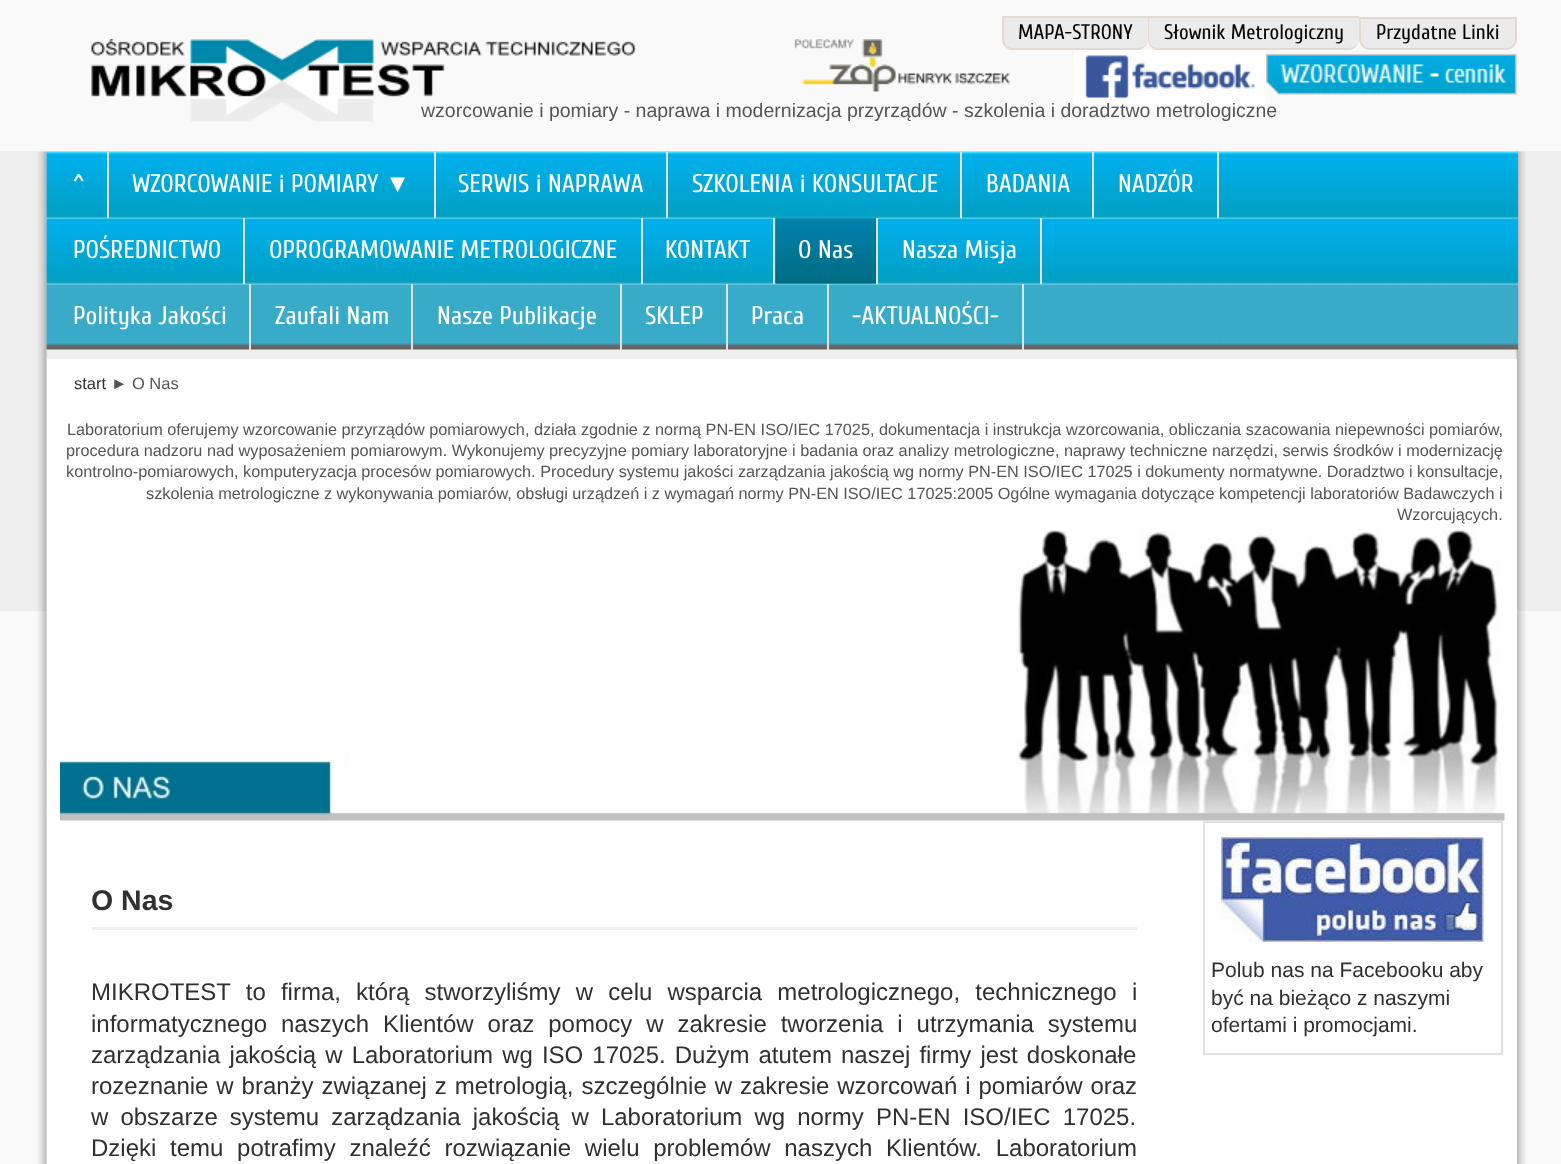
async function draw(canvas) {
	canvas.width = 1561;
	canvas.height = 1164;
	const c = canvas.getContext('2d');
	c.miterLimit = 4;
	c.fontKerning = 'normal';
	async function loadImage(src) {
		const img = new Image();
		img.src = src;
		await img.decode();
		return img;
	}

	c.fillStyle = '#faf9f9';
	c.fillRect(0, 0, 1561, 1164);
	c.fillStyle = '#efefef';
	c.fillRect(0, 151, 1561, 460);
	c.fillStyle = '#ebebeb';
	c.beginPath();
	c.roundRect(1002, 17, 146, 33, [0, 0, 11, 11]);
	c.fill();
	c.fillStyle = '#e3dad1';
	c.beginPath();
	c.moveTo(1002, 16);
	c.lineTo(1148, 16);
	c.lineTo(1148, 39);
	c.bezierCurveTo(1148, 45, 1143, 50, 1137, 50);
	c.lineTo(1012, 50);
	c.bezierCurveTo(1007, 50, 1002, 45, 1002, 39);
	c.closePath();
	c.moveTo(1004, 18);
	c.lineTo(1148, 18);
	c.lineTo(1148, 39);
	c.bezierCurveTo(1148, 44, 1143, 48, 1137, 48);
	c.lineTo(1012, 48);
	c.bezierCurveTo(1008, 48, 1004, 44, 1004, 39);
	c.closePath();
	c.fill('evenodd');
	c.font = '21px Cuprum';
	c.fillStyle = '#050505';
	c.fillText('MAPA-STRONY', 1018, 39);
	c.fillStyle = '#ebebeb';
	c.beginPath();
	c.roundRect(1148, 17, 211, 33, [0, 0, 11, 11]);
	c.fill();
	c.fillStyle = '#e3dad1';
	c.beginPath();
	c.moveTo(1148, 16);
	c.lineTo(1359, 16);
	c.lineTo(1359, 39);
	c.bezierCurveTo(1359, 45, 1354, 50, 1348, 50);
	c.lineTo(1158, 50);
	c.bezierCurveTo(1152, 50, 1148, 45, 1148, 39);
	c.closePath();
	c.moveTo(1149, 18);
	c.lineTo(1359, 18);
	c.lineTo(1359, 39);
	c.bezierCurveTo(1359, 44, 1354, 48, 1348, 48);
	c.lineTo(1158, 48);
	c.bezierCurveTo(1153, 48, 1149, 44, 1149, 39);
	c.closePath();
	c.fill('evenodd');
	c.fillStyle = '#050505';
	c.fillText('Słownik Metrologiczny', 1164, 39);
	c.fillStyle = '#ebebeb';
	c.beginPath();
	c.roundRect(1360, 18, 156, 31, [0, 0, 10, 10]);
	c.fill();
	c.strokeStyle = '#e3dad1';
	c.lineWidth = 2;
	c.stroke();
	c.fillStyle = '#050505';
	c.fillText('Przydatne Linki', 1376, 39);
	c.drawImage(await loadImage('img1.png'), 1074, 50, 192, 55);
	c.drawImage(await loadImage('img2.png'), 1266, 53, 251, 42);
	c.drawImage(await loadImage('img3.png'), 91, 39, 919, 83);
	c.font = '19.5px Liberation Sans';
	c.fillStyle = '#555';
	c.fillText('wzorcowanie i pomiary - naprawa i modernizacja przyrządów - szkolenia i doradztwo metrologiczne', 421, 117);
	c.drawImage(await loadImage('img4.png'), 37, 151, 1489, 1013);
	c.drawImage(await loadImage('img5.png'), 46, 151, 1472, 199);
	c.fillStyle = '#e1e1e1';
	c.fillRect(107, 152, 2, 66);
	c.font = '25.5px Cuprum';
	c.fillStyle = '#fff';
	c.fillText('^', 73, 192);
	c.fillStyle = '#e1e1e1';
	c.fillRect(434, 152, 2, 66);
	c.fillStyle = '#fff';
	c.fillText('WZORCOWANIE i POMIARY', 132, 192);
	c.font = '25.5px Liberation Sans';
	c.fillText('▼', 385, 192);
	c.fillStyle = '#e1e1e1';
	c.fillRect(666, 152, 2, 66);
	c.font = '25.5px Cuprum';
	c.fillStyle = '#fff';
	c.fillText('SERWIS i NAPRAWA', 458, 192);
	c.fillStyle = '#e1e1e1';
	c.fillRect(960, 152, 2, 66);
	c.fillStyle = '#fff';
	c.fillText('SZKOLENIA i KONSULTACJE', 692, 192);
	c.fillStyle = '#e1e1e1';
	c.fillRect(1092, 152, 2, 66);
	c.fillStyle = '#fff';
	c.fillText('BADANIA', 986, 192);
	c.fillStyle = '#e1e1e1';
	c.fillRect(1217, 152, 2, 66);
	c.fillStyle = '#fff';
	c.fillText('NADZÓR', 1118, 192);
	c.fillStyle = '#e1e1e1';
	c.fillRect(243, 218, 2, 66);
	c.fillStyle = '#fff';
	c.fillText('POŚREDNICTWO', 73, 258);
	c.fillStyle = '#e1e1e1';
	c.fillRect(641, 218, 2, 66);
	c.fillStyle = '#fff';
	c.fillText('OPROGRAMOWANIE METROLOGICZNE', 269, 258);
	c.fillStyle = '#e1e1e1';
	c.fillRect(773, 218, 2, 66);
	c.fillStyle = '#fff';
	c.fillText('KONTAKT', 665, 258);
	c.drawImage(await loadImage('img6.png'), 775, 217, 103, 67);
	c.fillStyle = '#e1e1e1';
	c.fillRect(876, 218, 2, 66);
	c.fillStyle = '#fff';
	c.fillText('O Nas', 798, 258);
	c.fillStyle = '#e1e1e1';
	c.fillRect(1040, 218, 2, 66);
	c.fillStyle = '#fff';
	c.fillText('Nasza Misja', 902, 258);
	c.fillStyle = '#e1e1e1';
	c.fillRect(249, 284, 2, 66);
	c.fillStyle = '#fff';
	c.fillText('Polityka Jakości', 73, 324);
	c.fillStyle = '#e1e1e1';
	c.fillRect(411, 284, 2, 66);
	c.fillStyle = '#fff';
	c.fillText('Zaufali Nam', 275, 324);
	c.fillStyle = '#e1e1e1';
	c.fillRect(620, 284, 2, 66);
	c.fillStyle = '#fff';
	c.fillText('Nasze Publikacje', 437, 324);
	c.fillStyle = '#e1e1e1';
	c.fillRect(726, 284, 2, 66);
	c.fillStyle = '#fff';
	c.fillText('SKLEP', 645, 324);
	c.fillStyle = '#e1e1e1';
	c.fillRect(827, 284, 2, 66);
	c.fillStyle = '#fff';
	c.fillText('Praca', 751, 324);
	c.fillStyle = '#e1e1e1';
	c.fillRect(1022, 284, 2, 66);
	c.fillStyle = '#fff';
	c.fillText('-AKTUALNOŚCI-', 852, 324);
	c.fillRect(47, 359, 1470, 805);
	c.font = '16.5px Liberation Sans';
	c.fillStyle = '#303030';
	c.fillText('start', 74, 389);
	c.fillStyle = '#555';
	c.fillText('► O Nas', 111, 389);
	c.font = '16.25px Liberation Sans';
	for (const [text, x, y] of [
		['Laboratorium oferujemy wzorcowanie przyrządów pomiarowych, działa zgodnie z normą PN-EN ISO/IEC 17025, dokumentacja i instrukcja wzorcowania, obliczania szacowania niepewności pomiarów,', 67, 435],
		['procedura nadzoru nad wyposażeniem pomiarowym. Wykonujemy precyzyjne pomiary laboratoryjne i badania oraz analizy metrologiczne, naprawy techniczne narzędzi, serwis środków i modernizację', 66, 456],
		['kontrolno-pomiarowych, komputeryzacja procesów pomiarowych. Procedury systemu jakości zarządzania jakością wg normy PN-EN ISO/IEC 17025 i dokumenty normatywne. Doradztwo i konsultacje,', 66, 477],
		['szkolenia metrologiczne z wykonywania pomiarów, obsługi urządzeń i z wymagań normy PN-EN ISO/IEC 17025:2005 Ogólne wymagania dotyczące kompetencji laboratoriów Badawczych i', 146, 499],
		['Wzorcujących.', 1397, 520],
	]) {
		c.fillText(text, x, y);
	}
	c.drawImage(await loadImage('img7.png'), 60, 529, 1445, 292);
	c.font = 'bold 28.5px Liberation Sans';
	c.fillStyle = '#303030';
	c.fillText('O Nas', 91, 910);
	c.fillStyle = '#eee';
	c.fillRect(92, 927, 1045, 3);
	c.wordSpacing = '8.5px';
	c.font = '24px Liberation Sans';
	c.fillStyle = '#303030';
	c.fillText('MIKROTEST to firma, którą stworzyliśmy w celu wsparcia metrologicznego, technicznego i', 91, 1000);
	c.wordSpacing = '7.25px';
	c.fillText('informatycznego naszych Klientów oraz pomocy w zakresie tworzenia i utrzymania systemu', 91, 1032);
	c.wordSpacing = '2.4px';
	c.fillText('zarządzania jakością w Laboratorium wg ISO 17025. Dużym atutem naszej firmy jest doskonałe', 91, 1063);
	c.wordSpacing = '1.25px';
	c.fillText('rozeznanie w branży związanej z metrologią, szczególnie w zakresie wzorcowań i pomiarów oraz', 91, 1094);
	c.wordSpacing = '5.4px';
	c.fillText('w obszarze systemu zarządzania jakością w Laboratorium wg normy PN-EN ISO/IEC 17025.', 91, 1125);
	c.wordSpacing = '7px';
	c.fillText('Dzięki temu potrafimy znaleźć rozwiązanie wielu problemów naszych Klientów. Laboratorium', 91, 1156);
	c.strokeStyle = '#e1e1e1';
	c.strokeRect(1204, 822, 298, 232);
	c.drawImage(await loadImage('img8.png'), 1221, 837, 263, 105);
	c.wordSpacing = '0px';
	c.font = '21px Liberation Sans';
	for (const [text, x, y] of [
		['Polub nas na Facebooku aby', 1211, 977],
		['być na bieżąco z naszymi', 1211, 1005],
		['ofertami i promocjami.', 1211, 1032],
	]) {
		c.fillText(text, x, y);
	}
}

draw(document.querySelector('canvas'));
